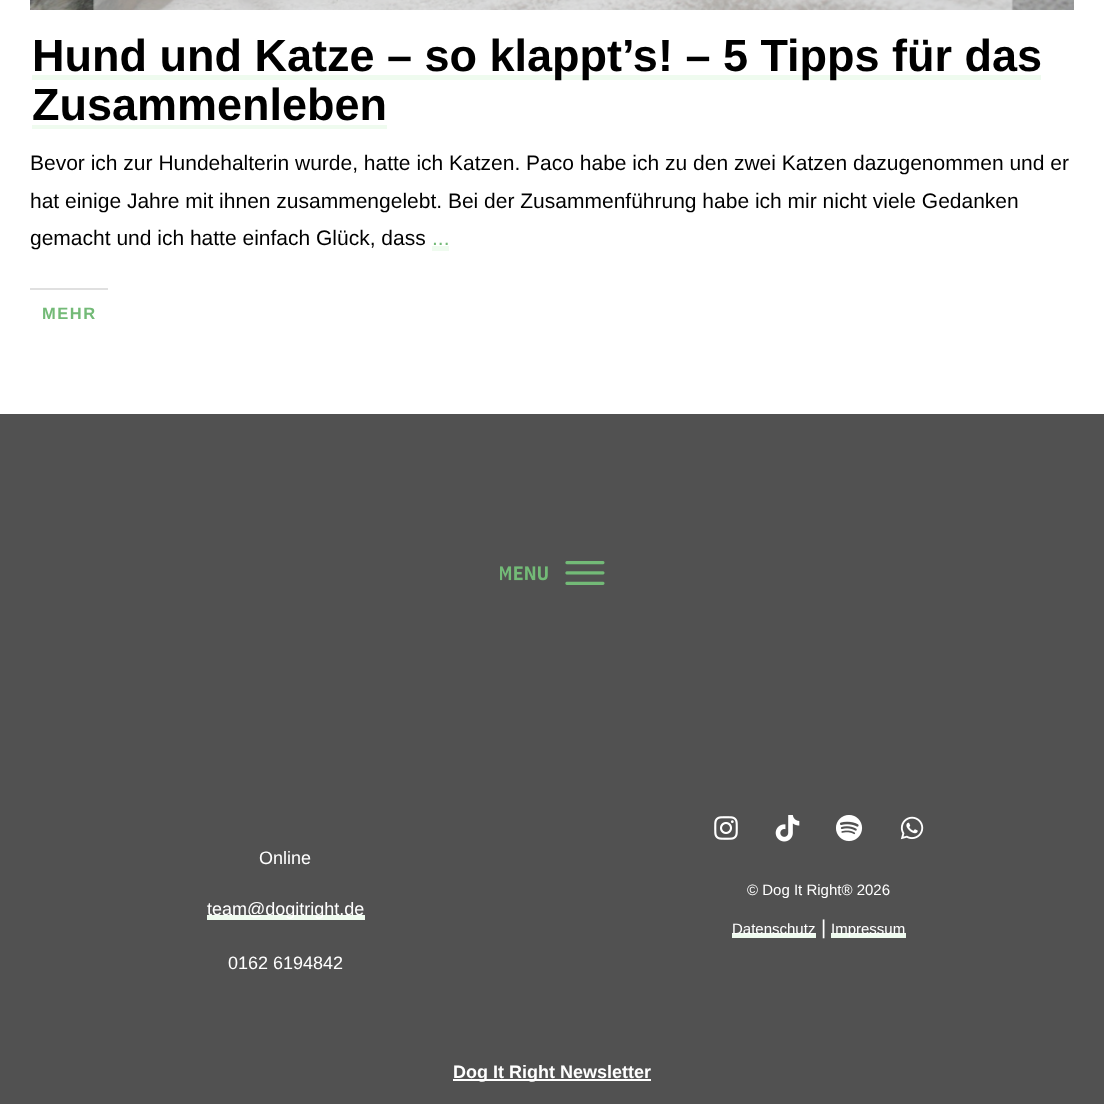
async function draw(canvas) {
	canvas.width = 1104;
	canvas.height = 1104;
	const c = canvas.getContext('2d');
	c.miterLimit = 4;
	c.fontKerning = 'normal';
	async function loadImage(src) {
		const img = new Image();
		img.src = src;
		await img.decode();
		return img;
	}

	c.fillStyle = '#fff';
	c.fillRect(0, 0, 1104, 1104);
	c.drawImage(await loadImage('img1.png'), 30, 0, 1044, 10);
	c.fillStyle = '#effbef';
	c.fillRect(32, 75, 1009, 5);
	c.font = 'bold 45px Liberation Sans';
	c.fillStyle = '#000';
	c.fillText('Hund und Katze – so klappt’s! – 5 Tipps für das', 32, 71);
	c.fillText('Zusammenleben', 32, 120);
	c.fillStyle = '#effbef';
	c.fillRect(32, 125, 355, 4);
	c.font = '21px Liberation Sans';
	c.fillStyle = '#000';
	for (const [text, x, y] of [
		['Bevor ich zur Hundehalterin wurde, hatte ich Katzen. Paco habe ich zu den zwei Katzen dazugenommen und er', 30, 170],
		['hat einige Jahre mit ihnen zusammengelebt. Bei der Zusammenführung habe ich mir nicht viele Gedanken', 30, 208],
		['gemacht und ich hatte einfach Glück, dass', 30, 245],
	]) {
		c.fillText(text, x, y);
	}
	c.fillStyle = '#73ba77';
	c.fillText('...', 432, 245);
	c.fillStyle = '#effbef';
	c.fillRect(432, 246, 17, 5);
	c.fillStyle = '#e0e0e0';
	c.fillRect(30, 288, 78, 2);
	c.letterSpacing = '1.5px';
	c.font = 'bold 16.5px Liberation Sans';
	c.fillStyle = '#73ba77';
	c.fillText('MEHR', 42, 319);
	c.fillStyle = '#515151';
	c.fillRect(0, 414, 1104, 690);
	c.drawImage(await loadImage('img2.png'), 500, 561, 105, 24);
	c.letterSpacing = '0px';
	c.font = '18px Liberation Sans';
	c.fillStyle = '#fff';
	c.fillText('Online', 259, 864);
	c.fillStyle = '#effbef';
	c.fillRect(207, 915, 158, 5);
	c.fillStyle = '#fff';
	c.fillText('team@dogitright.de', 207, 915);
	c.fillText('0162 6194842', 228, 969);
	c.drawImage(await loadImage('img3.png'), 714, 816, 24, 24);
	c.drawImage(await loadImage('img4.png'), 775, 815, 25, 27);
	c.drawImage(await loadImage('img5.png'), 836, 815, 27, 27);
	c.drawImage(await loadImage('img6.png'), 900, 816, 24, 24);
	c.font = '15px Liberation Sans';
	c.fillText('© Dog It Right® 2026', 747, 895);
	c.fillStyle = '#effbef';
	c.fillRect(732, 933, 84, 5);
	c.fillStyle = '#fff';
	c.fillText('Datenschutz', 732, 934);
	c.font = '20px Liberation Sans';
	c.fillText('|', 821, 934);
	c.fillStyle = '#effbef';
	c.fillRect(831, 933, 75, 5);
	c.font = '15px Liberation Sans';
	c.fillStyle = '#fff';
	c.fillText('Impressum', 831, 934);
	c.fillRect(453, 1079, 198, 2);
	c.font = 'bold 18px Liberation Sans';
	c.fillText('Dog It Right Newsletter', 453, 1078);
}

draw(document.querySelector('canvas'));
